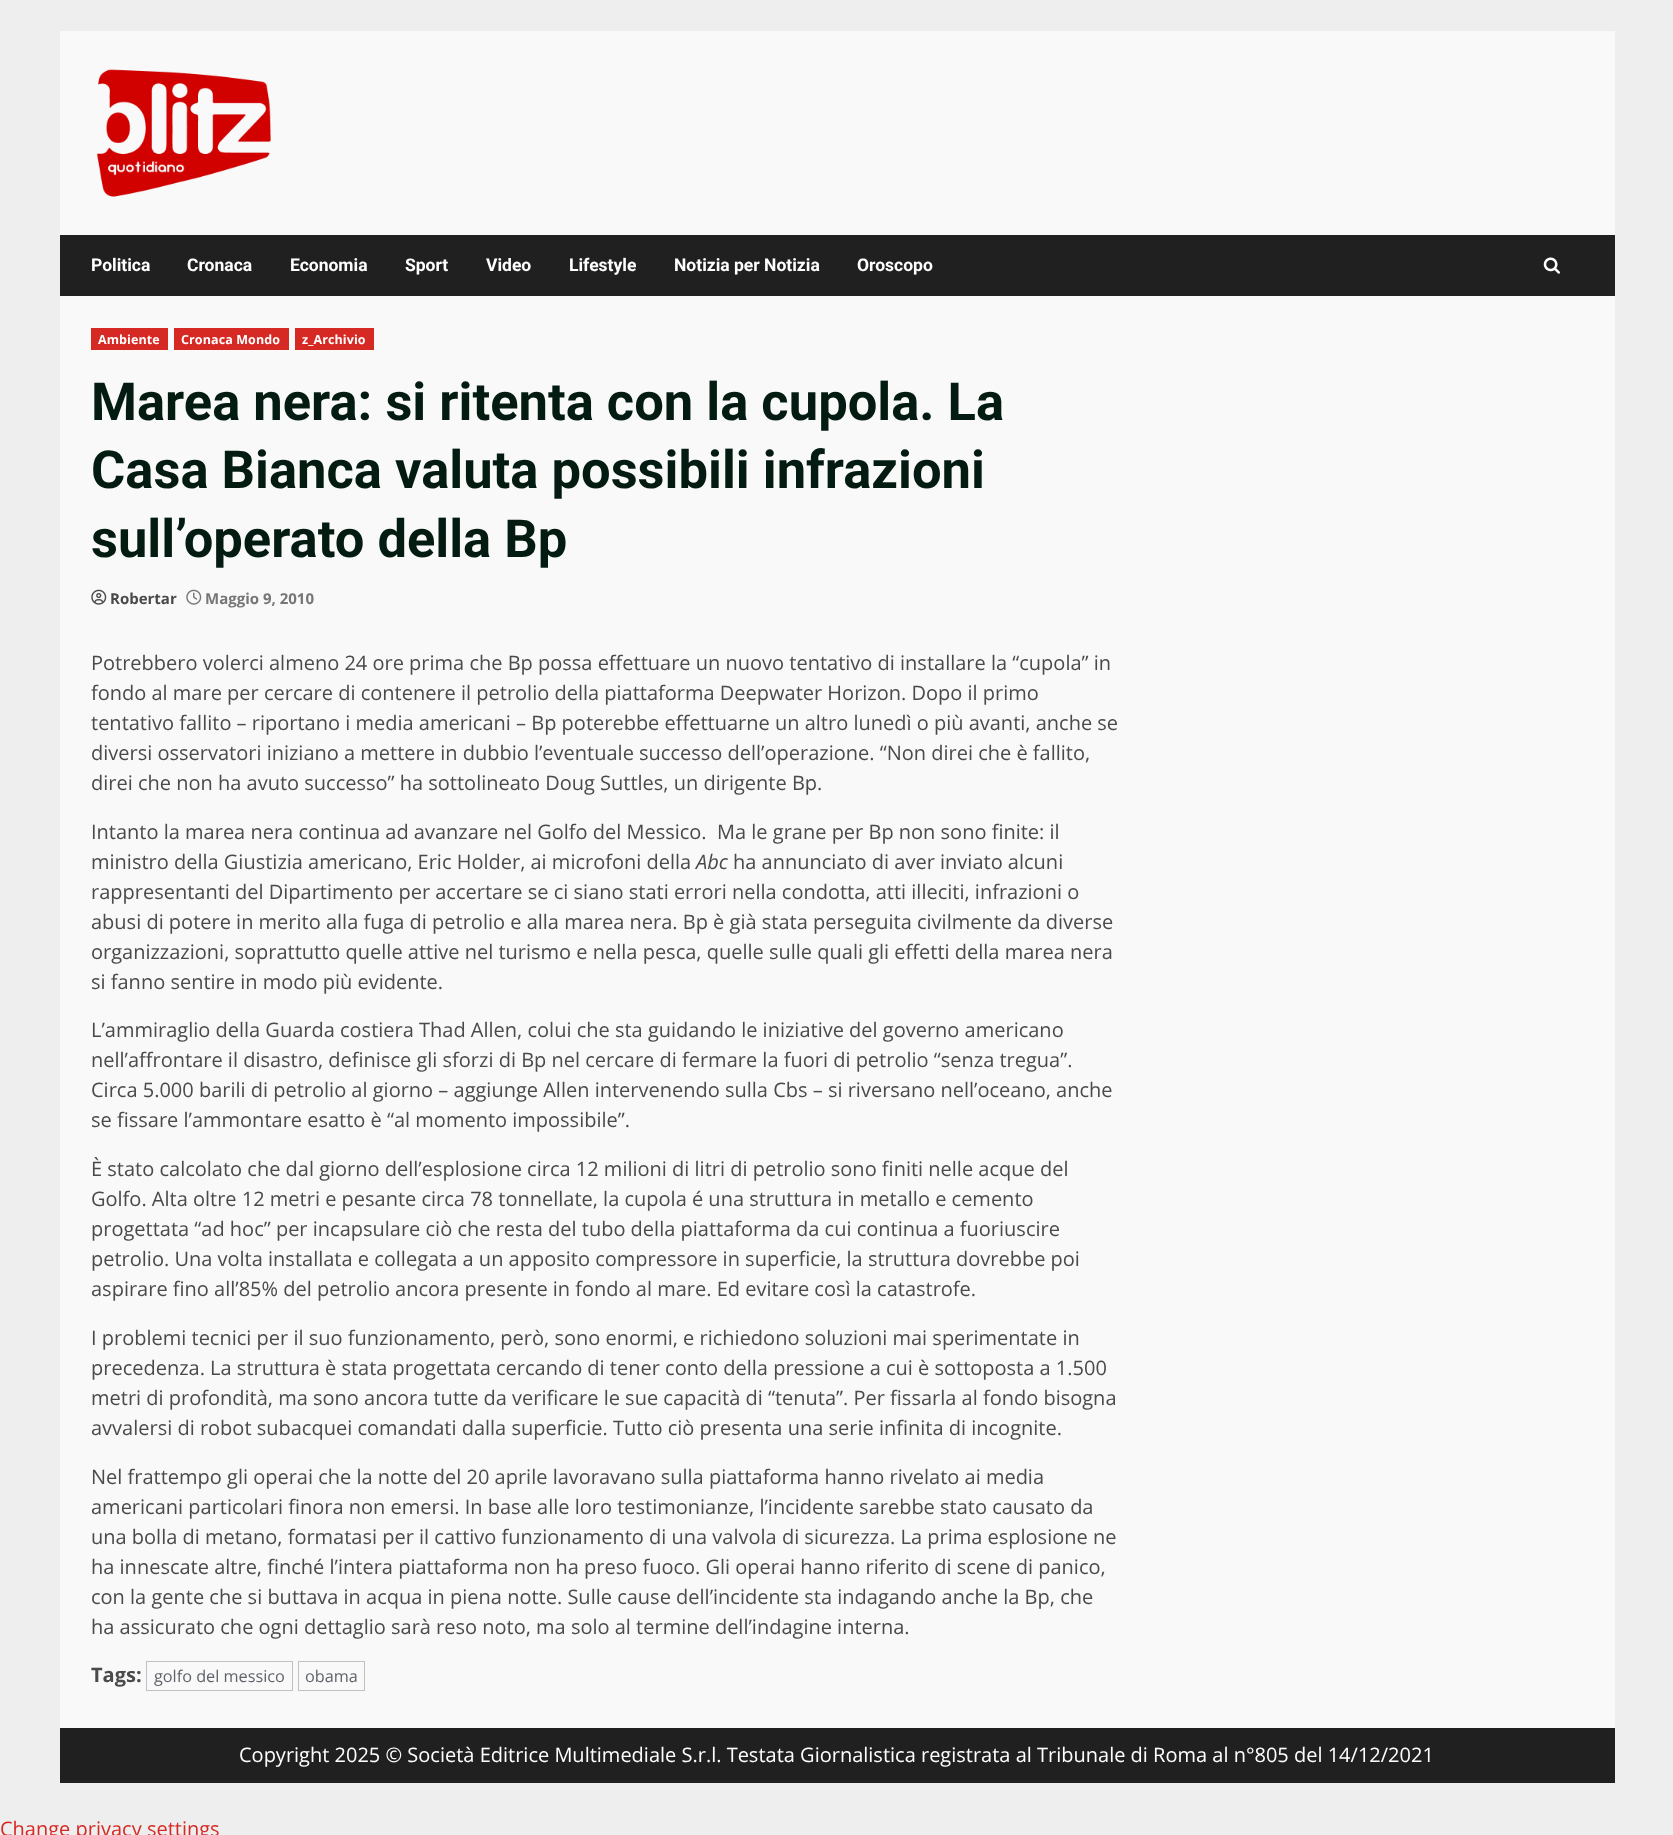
async function draw(canvas) {
	canvas.width = 1673;
	canvas.height = 1835;
	const c = canvas.getContext('2d');
	c.miterLimit = 4;
	c.fontKerning = 'normal';
	async function loadImage(src) {
		const img = new Image();
		img.src = src;
		await img.decode();
		return img;
	}

	c.fillStyle = '#eee';
	c.fillRect(0, 0, 1673, 1835);
	c.fillStyle = '#f9f9f9';
	c.fillRect(60, 31, 1555, 1697);
	c.drawImage(await loadImage('img1.png'), 96, 69, 175, 128);
	c.fillStyle = '#202020';
	c.fillRect(60, 235, 1555, 61);
	c.font = 'bold 17.5px Roboto';
	c.fillStyle = '#fff';
	for (const [text, x, y] of [
		['Politica', 91, 271],
		['Cronaca', 187, 271],
		['Economia', 290, 271],
		['Sport', 405, 271],
		['Video', 486, 271],
		['Lifestyle', 569, 271],
		['Notizia per Notizia', 674, 271],
		['Oroscopo', 857, 271],
	]) {
		c.fillText(text, x, y);
	}
	c.drawImage(await loadImage('img2.png'), 1543, 257, 17, 17);
	c.fillStyle = '#d72924';
	c.fillRect(91, 328, 77, 22);
	c.letterSpacing = '0.1px';
	c.font = 'bold 12.5px Open Sans';
	c.fillStyle = '#fff';
	c.fillText('Ambiente', 98, 344);
	c.fillStyle = '#d72924';
	c.fillRect(174, 328, 115, 22);
	c.fillStyle = '#fff';
	c.fillText('Cronaca Mondo', 181, 344);
	c.fillStyle = '#d72924';
	c.fillRect(295, 328, 79, 22);
	c.fillStyle = '#fff';
	c.fillText('z_Archivio', 302, 344);
	c.letterSpacing = '0px';
	c.font = 'bold 52.5px Roboto';
	c.fillStyle = '#031b11';
	for (const [text, x, y] of [
		['Marea nera: si ritenta con la cupola. La', 91, 420],
		['Casa Bianca valuta possibili infrazioni', 91, 488],
		['sull’operato della Bp', 91, 557],
	]) {
		c.fillText(text, x, y);
	}
	c.drawImage(await loadImage('img3.png'), 91, 589, 16, 16);
	c.font = 'bold 15px Open Sans';
	c.fillStyle = '#4a4a4a';
	c.fillText('Robertar', 110, 604);
	c.drawImage(await loadImage('img4.png'), 186, 589, 16, 16);
	c.fillStyle = '#767676';
	c.fillText('Maggio 9, 2010', 205, 604);
	c.font = '20px Open Sans';
	c.fillStyle = '#4a4a4a';
	for (const [text, x, y] of [
		['Potrebbero volerci almeno 24 ore prima che Bp possa effettuare un nuovo tentativo di installare la “cupola” in', 91, 670],
		['fondo al mare per cercare di contenere il petrolio della piattaforma Deepwater Horizon. Dopo il primo', 91, 700],
		['tentativo fallito – riportano i media americani – Bp poterebbe effettuarne un altro lunedì o più avanti, anche se', 91, 730],
		['diversi osservatori iniziano a mettere in dubbio l’eventuale successo dell’operazione. “Non direi che è fallito,', 91, 760],
		['direi che non ha avuto successo” ha sottolineato Doug Suttles, un dirigente Bp.', 91, 790],
		['Intanto la marea nera continua ad avanzare nel Golfo del Messico.  Ma le grane per Bp non sono finite: il', 91, 839],
		['ministro della Giustizia americano, Eric Holder, ai microfoni della', 91, 869],
	]) {
		c.fillText(text, x, y);
	}
	c.font = 'italic 20px Open Sans';
	c.fillText('Abc', 696, 869);
	c.font = '20px Open Sans';
	for (const [text, x, y] of [
		['ha annunciato di aver inviato alcuni', 733, 869],
		['rappresentanti del Dipartimento per accertare se ci siano stati errori nella condotta, atti illeciti, infrazioni o', 91, 899],
		['abusi di potere in merito alla fuga di petrolio e alla marea nera. Bp è già stata perseguita civilmente da diverse', 91, 929],
		['organizzazioni, soprattutto quelle attive nel turismo e nella pesca, quelle sulle quali gli effetti della marea nera', 91, 959],
		['si fanno sentire in modo più evidente.', 91, 989],
		['L’ammiraglio della Guarda costiera Thad Allen, colui che sta guidando le iniziative del governo americano', 91, 1037],
		['nell’affrontare il disastro, definisce gli sforzi di Bp nel cercare di fermare la fuori di petrolio “senza tregua”.', 91, 1067],
		['Circa 5.000 barili di petrolio al giorno – aggiunge Allen intervenendo sulla Cbs – si riversano nell’oceano, anche', 91, 1097],
		['se fissare l’ammontare esatto è “al momento impossibile”.', 91, 1127],
		['È stato calcolato che dal giorno dell’esplosione circa 12 milioni di litri di petrolio sono finiti nelle acque del', 91, 1176],
		['Golfo. Alta oltre 12 metri e pesante circa 78 tonnellate, la cupola é una struttura in metallo e cemento', 91, 1206],
		['progettata “ad hoc” per incapsulare ciò che resta del tubo della piattaforma da cui continua a fuoriuscire', 91, 1236],
		['petrolio. Una volta installata e collegata a un apposito compressore in superficie, la struttura dovrebbe poi', 91, 1266],
		['aspirare fino all’85% del petrolio ancora presente in fondo al mare. Ed evitare così la catastrofe.', 91, 1296],
		['I problemi tecnici per il suo funzionamento, però, sono enormi, e richiedono soluzioni mai sperimentate in', 91, 1345],
		['precedenza. La struttura è stata progettata cercando di tener conto della pressione a cui è sottoposta a 1.500', 91, 1375],
		['metri di profondità, ma sono ancora tutte da verificare le sue capacità di “tenuta”. Per fissarla al fondo bisogna', 91, 1405],
		['avvalersi di robot subacquei comandati dalla superficie. Tutto ciò presenta una serie infinita di incognite.', 91, 1435],
		['Nel frattempo gli operai che la notte del 20 aprile lavoravano sulla piattaforma hanno rivelato ai media', 91, 1484],
		['americani particolari finora non emersi. In base alle loro testimonianze, l’incidente sarebbe stato causato da', 91, 1514],
		['una bolla di metano, formatasi per il cattivo funzionamento di una valvola di sicurezza. La prima esplosione ne', 91, 1544],
		['ha innescate altre, finché l’intera piattaforma non ha preso fuoco. Gli operai hanno riferito di scene di panico,', 91, 1574],
		['con la gente che si buttava in acqua in piena notte. Sulle cause dell’incidente sta indagando anche la Bp, che', 91, 1604],
		['ha assicurato che ogni dettaglio sarà reso noto, ma solo al termine dell’indagine interna.', 91, 1634],
	]) {
		c.fillText(text, x, y);
	}
	c.font = 'bold 20px Open Sans';
	c.fillText('Tags:', 91, 1682);
	c.strokeStyle = '#bfc1c3';
	c.strokeRect(146.5, 1661.5, 146, 29);
	c.font = '16.25px Open Sans';
	c.fillStyle = '#5f636a';
	c.fillText('golfo del messico', 154, 1682);
	c.strokeRect(298.5, 1661.5, 66, 29);
	c.fillText('obama', 305, 1682);
	c.fillStyle = '#202020';
	c.fillRect(60, 1728, 1555, 55);
	c.font = '20px Open Sans';
	c.fillStyle = '#fff';
	c.fillText('Copyright 2025 © Società Editrice Multimediale S.r.l. Testata Giornalistica registrata al Tribunale di Roma al n°805 del 14/12/2021', 239, 1762);
	c.fillStyle = '#d72924';
	c.fillText('Change privacy settings', 0, 1836);
}

draw(document.querySelector('canvas'));
